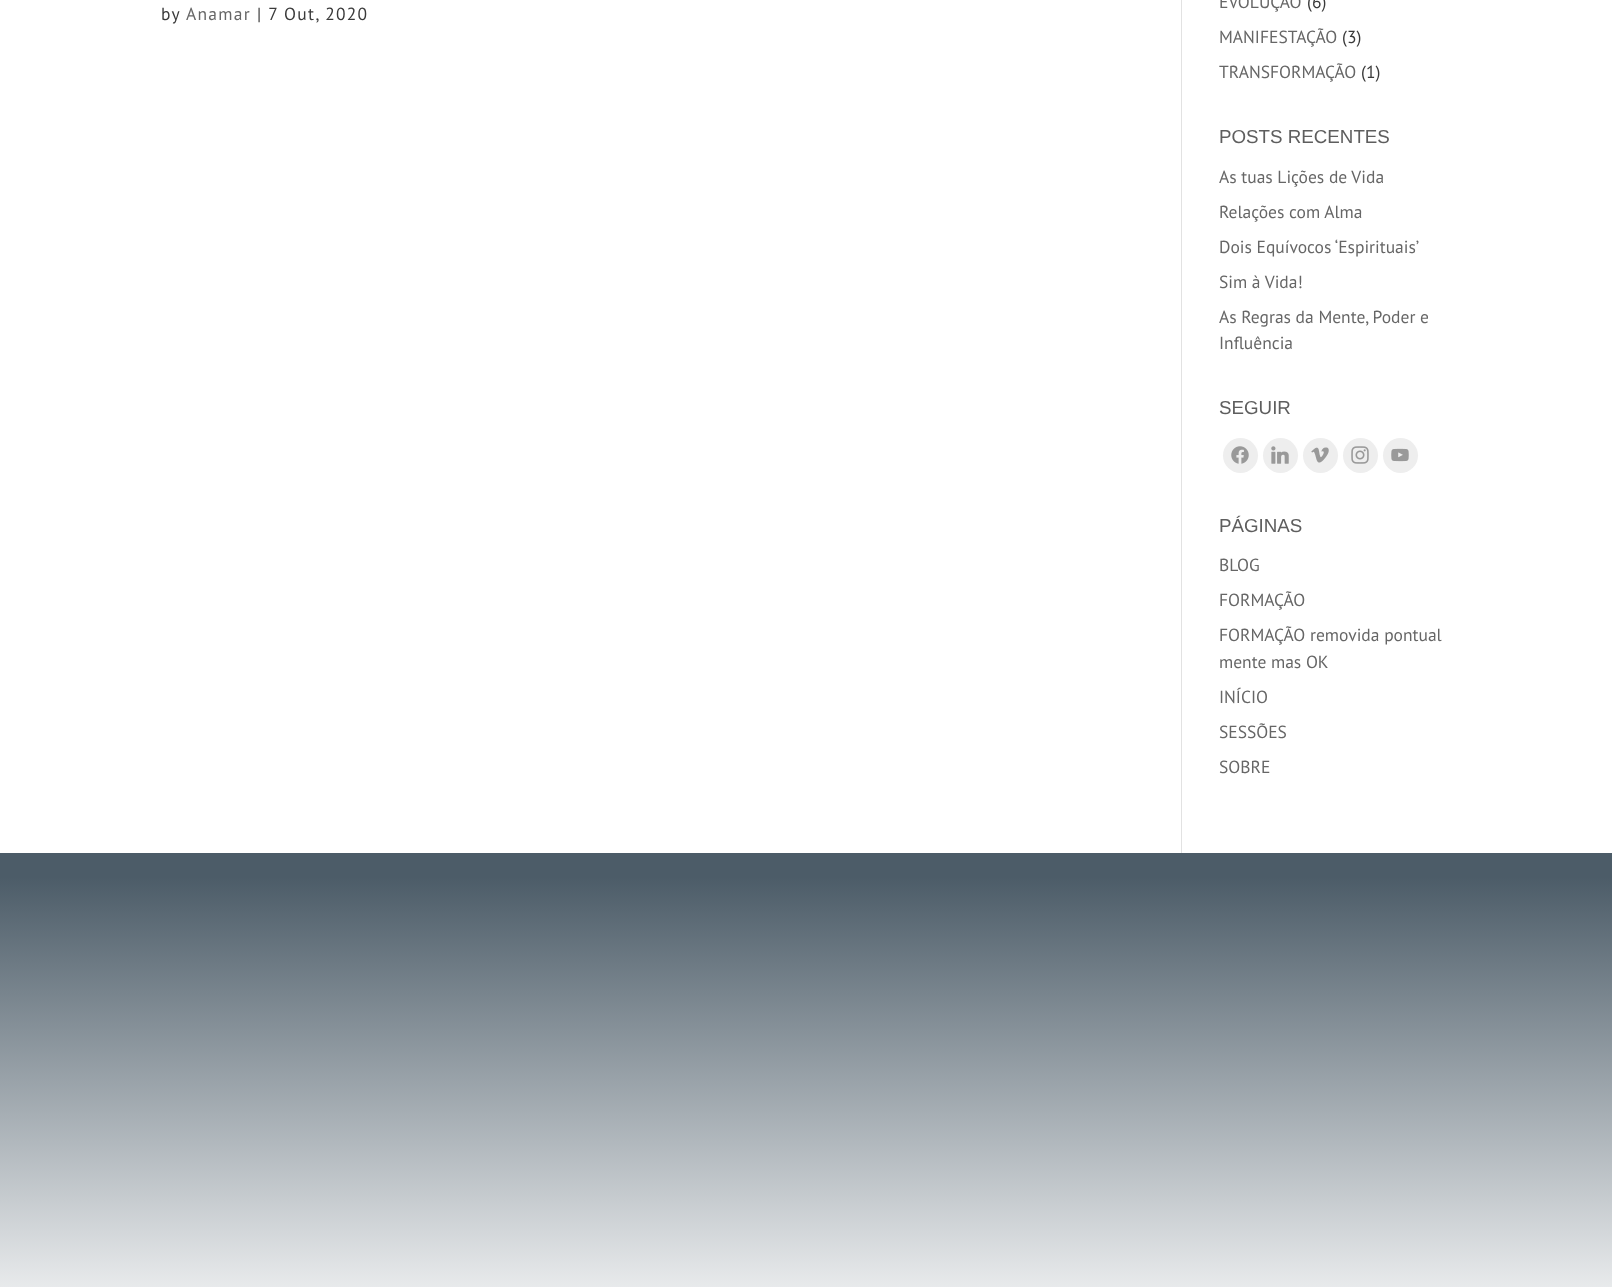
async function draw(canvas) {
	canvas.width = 1612;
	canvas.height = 1287;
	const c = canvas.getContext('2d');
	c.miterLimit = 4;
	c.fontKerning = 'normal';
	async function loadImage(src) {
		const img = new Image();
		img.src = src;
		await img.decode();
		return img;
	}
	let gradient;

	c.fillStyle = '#fff';
	c.fillRect(0, 0, 1612, 1287);
	c.letterSpacing = '1.25px';
	c.font = '17.5px PT Sans';
	c.fillStyle = '#3a3a3a';
	c.fillText('by', 161, 20);
	c.fillStyle = '#666';
	c.fillText('Anamar', 186, 20);
	c.fillStyle = '#3a3a3a';
	c.fillText('| 7 Out, 2020', 257, 20);
	c.letterSpacing = '0px';
	c.fillStyle = '#666';
	c.fillText('EVOLUÇÃO', 1219, 8);
	c.fillStyle = '#3a3a3a';
	c.fillText('(6)', 1307, 8);
	c.fillStyle = '#666';
	c.fillText('MANIFESTAÇÃO', 1219, 43);
	c.fillStyle = '#3a3a3a';
	c.fillText('(3)', 1342, 43);
	c.fillStyle = '#666';
	c.fillText('TRANSFORMAÇÃO', 1219, 78);
	c.fillStyle = '#3a3a3a';
	c.fillText('(1)', 1361, 78);
	c.font = '18.75px Liberation Sans';
	c.fillStyle = '#5e5e5e';
	c.fillText('POSTS RECENTES', 1219, 143);
	c.font = '17.5px PT Sans';
	c.fillStyle = '#666';
	for (const [text, x, y] of [
		['As tuas Lições de Vida', 1219, 183],
		['Relações com Alma', 1219, 218],
		['Dois Equívocos ‘Espirituais’', 1219, 253],
		['Sim à Vida!', 1219, 288],
		['As Regras da Mente, Poder e', 1219, 323],
		['Influência', 1219, 349],
	]) {
		c.fillText(text, x, y);
	}
	c.font = '18.75px Liberation Sans';
	c.fillStyle = '#5e5e5e';
	c.fillText('SEGUIR', 1219, 414);
	c.fillStyle = '#eee';
	c.beginPath();
	c.arc(1240.5, 455.5, 17.5, 0, 2 * Math.PI);
	c.fill();
	c.drawImage(await loadImage('img1.png'), 1231, 446, 18, 18);
	c.beginPath();
	c.arc(1280.5, 455.5, 17.5, 0, 2 * Math.PI);
	c.fill();
	c.drawImage(await loadImage('img2.png'), 1271, 446, 18, 18);
	c.beginPath();
	c.arc(1320.5, 455.5, 17.5, 0, 2 * Math.PI);
	c.fill();
	c.drawImage(await loadImage('img3.png'), 1311, 447, 18, 16);
	c.beginPath();
	c.arc(1360.5, 455.5, 17.5, 0, 2 * Math.PI);
	c.fill();
	c.drawImage(await loadImage('img4.png'), 1351, 446, 18, 18);
	c.beginPath();
	c.arc(1400.5, 455.5, 17.5, 0, 2 * Math.PI);
	c.fill();
	c.drawImage(await loadImage('img5.png'), 1391, 448, 18, 14);
	c.fillStyle = '#5e5e5e';
	c.fillText('PÁGINAS', 1219, 532);
	c.font = '17.5px PT Sans';
	c.fillStyle = '#666';
	for (const [text, x, y] of [
		['BLOG', 1219, 571],
		['FORMAÇÃO', 1219, 606],
		['FORMAÇÃO removida pontual', 1219, 641],
		['mente mas OK', 1219, 668],
		['INÍCIO', 1219, 703],
		['SESSÕES', 1219, 738],
		['SOBRE', 1219, 773],
	]) {
		c.fillText(text, x, y);
	}
	c.fillStyle = '#e2e2e2';
	c.fillRect(1181, 0, 1, 853);
	gradient = c.createLinearGradient(806, 852, 806, 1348);
	gradient.addColorStop(0.05, '#4c5c68');
	gradient.addColorStop(1, '#fff');
	c.fillStyle = gradient;
	c.fillRect(0, 853, 1612, 434);
}

draw(document.querySelector('canvas'));
